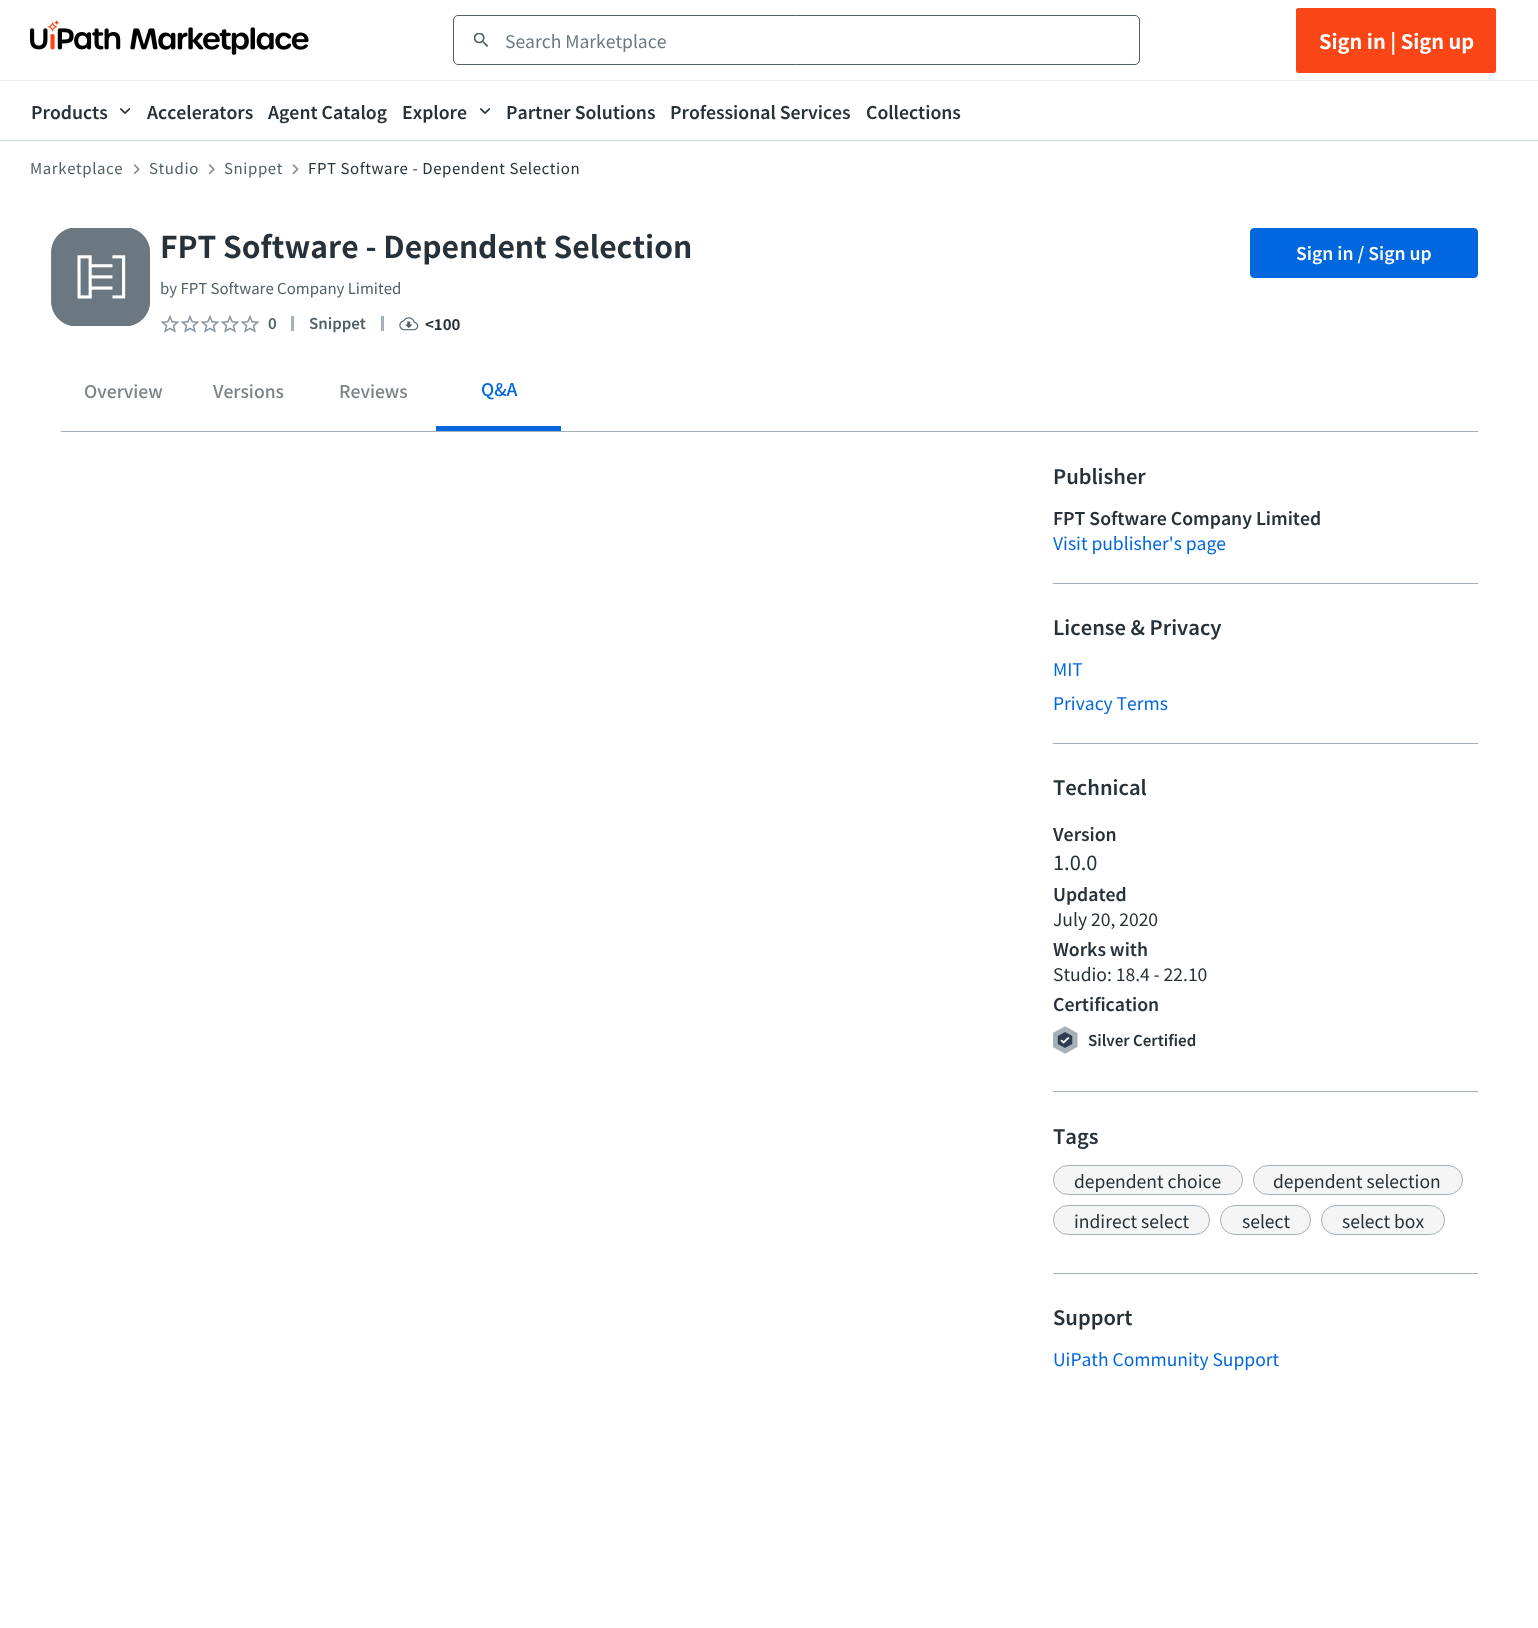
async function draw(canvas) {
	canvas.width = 1538;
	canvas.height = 1628;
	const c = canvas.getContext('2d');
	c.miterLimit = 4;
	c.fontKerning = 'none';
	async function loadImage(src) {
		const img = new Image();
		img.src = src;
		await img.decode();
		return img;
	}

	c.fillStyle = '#fff';
	c.fillRect(0, 0, 1538, 1628);
	c.fillStyle = '#cfd8dd';
	c.fillRect(0, 140, 1538, 1);
	c.drawImage(await loadImage('img1.png'), 30, 20, 279, 35);
	c.drawImage(await loadImage('img2.png'), 474, 33, 15, 14);
	c.beginPath();
	c.roundRect(453.5, 15.5, 686, 49, 4.5);
	c.strokeStyle = '#526069';
	c.stroke();
	c.font = '17.5px Noto Sans JP';
	c.fillStyle = '#6b7882';
	c.fillText('Search Marketplace', 505, 48);
	c.fillStyle = '#fa4616';
	c.beginPath();
	c.roundRect(1297.5, 9.5, 197, 62, 1);
	c.fill();
	c.strokeStyle = '#fa4616';
	c.lineWidth = 3;
	c.stroke();
	c.font = 'bold 20px Noto Sans JP';
	c.fillStyle = '#fff';
	c.fillText('Sign in | Sign up', 1319, 49);
	c.fillStyle = '#e9f0f3';
	c.fillRect(0, 80, 1538, 1);
	c.font = '600 17.5px Noto Sans JP';
	c.fillStyle = '#273139';
	c.fillText('Products', 31, 119);
	c.drawImage(await loadImage('img3.png'), 120, 108, 10, 6);
	for (const [text, x, y] of [
		['Accelerators', 147, 119],
		['Agent Catalog', 268, 119],
		['Explore', 402, 119],
	]) {
		c.fillText(text, x, y);
	}
	c.drawImage(await loadImage('img3.png'), 480, 108, 10, 6);
	for (const [text, x, y] of [
		['Partner Solutions', 506, 119],
		['Professional Services', 670, 119],
		['Collections', 866, 119],
	]) {
		c.fillText(text, x, y);
	}
	c.letterSpacing = '0.6px';
	c.font = '15px Noto Sans JP';
	c.fillStyle = '#526069';
	c.fillText('Marketplace', 30, 174);
	c.drawImage(await loadImage('img4.png'), 133, 164, 7, 11);
	c.fillText('Studio', 149, 174);
	c.drawImage(await loadImage('img4.png'), 208, 164, 7, 11);
	c.fillText('Snippet', 224, 174);
	c.drawImage(await loadImage('img5.png'), 292, 164, 7, 11);
	c.fillStyle = '#273139';
	c.fillText('FPT Software - Dependent Selection', 308, 174);
	c.drawImage(await loadImage('img6.png'), 51, 228, 99, 98);
	c.letterSpacing = '0px';
	c.font = 'bold 30px Noto Sans JP';
	c.fillText('FPT Software - Dependent Selection', 160, 258);
	c.font = '15px Noto Sans JP';
	c.fillStyle = '#526069';
	c.fillText('by FPT Software Company Limited', 160, 294);
	c.drawImage(await loadImage('img7.png'), 160, 315, 20, 18);
	c.drawImage(await loadImage('img7.png'), 180, 315, 20, 18);
	c.drawImage(await loadImage('img7.png'), 200, 315, 20, 18);
	c.drawImage(await loadImage('img7.png'), 220, 315, 20, 18);
	c.drawImage(await loadImage('img7.png'), 240, 315, 20, 18);
	c.font = '600 15px Noto Sans JP';
	c.fillText('0', 268, 329);
	c.fillStyle = '#a4b1b8';
	c.fillRect(291, 316, 3, 15);
	c.fillStyle = '#526069';
	c.fillText('Snippet', 309, 329);
	c.fillStyle = '#a4b1b8';
	c.fillRect(381, 316, 3, 15);
	c.drawImage(await loadImage('img8.png'), 399, 317, 20, 14);
	c.font = 'bold 15px Noto Sans JP';
	c.fillStyle = '#273139';
	c.fillText('<100', 425, 330);
	c.fillStyle = '#0067df';
	c.beginPath();
	c.roundRect(1250.5, 228.5, 227, 49, 3.5);
	c.fill();
	c.strokeStyle = '#0067df';
	c.lineWidth = 1;
	c.stroke();
	c.font = '600 17.5px Noto Sans JP';
	c.fillStyle = '#f8f9fa';
	c.fillText('Sign in / Sign up', 1296, 260);
	c.font = '500 17.5px Noto Sans JP';
	c.fillStyle = '#7d8388';
	for (const [text, x, y] of [
		['Overview', 84, 398],
		['Versions', 213, 398],
		['Reviews', 339, 398],
	]) {
		c.fillText(text, x, y);
	}
	c.fillStyle = '#0067df';
	c.fillText('Q&A', 481, 396);
	c.fillRect(436, 426, 125, 5);
	c.fillStyle = '#a4b1b8';
	c.fillRect(61, 431, 1417, 1);
	c.font = '600 20px Noto Sans JP';
	c.fillStyle = '#273139';
	c.fillText('Publisher', 1053, 484);
	c.font = '600 17.5px Noto Sans JP';
	c.fillText('FPT Software Company Limited', 1053, 525);
	c.font = '17.5px Noto Sans JP';
	c.fillStyle = '#0067df';
	c.fillText('Visit publisher\'s page', 1053, 550);
	c.fillStyle = '#a4b1b8';
	c.fillRect(1053, 583, 425, 1);
	c.font = '600 20px Noto Sans JP';
	c.fillStyle = '#273139';
	c.fillText('License & Privacy', 1053, 635);
	c.font = '17.5px Noto Sans JP';
	c.fillStyle = '#0067df';
	c.fillText('MIT', 1053, 676);
	c.fillText('Privacy Terms', 1053, 710);
	c.fillStyle = '#a4b1b8';
	c.fillRect(1053, 743, 425, 1);
	c.font = '600 20px Noto Sans JP';
	c.fillStyle = '#273139';
	c.fillText('Technical', 1053, 795);
	c.font = '600 17.5px Noto Sans JP';
	c.fillText('Version', 1053, 841);
	c.font = '20px Noto Sans JP';
	c.fillText('1.0.0', 1053, 870);
	c.font = '600 17.5px Noto Sans JP';
	c.fillText('Updated', 1053, 901);
	c.font = '17.5px Noto Sans JP';
	c.fillText('July 20, 2020', 1053, 926);
	c.font = '600 17.5px Noto Sans JP';
	c.fillText('Works with', 1053, 956);
	c.font = '17.5px Noto Sans JP';
	c.fillText('Studio: 18.4 - 22.10', 1053, 981);
	c.font = '600 17.5px Noto Sans JP';
	c.fillText('Certification', 1053, 1011);
	c.drawImage(await loadImage('img9.png'), 1053, 1026, 25, 28);
	c.font = '600 15px Noto Sans JP';
	c.fillText('Silver Certified', 1088, 1046);
	c.fillStyle = '#a4b1b8';
	c.fillRect(1053, 1091, 425, 1);
	c.font = '600 20px Noto Sans JP';
	c.fillStyle = '#273139';
	c.fillText('Tags', 1053, 1144);
	c.fillStyle = '#f5f5f5';
	c.beginPath();
	c.roundRect(1053.5, 1165.5, 189, 29, 14.5);
	c.fill();
	c.strokeStyle = '#a4b1b8';
	c.stroke();
	c.font = '17.5px Noto Sans JP';
	c.fillStyle = '#273139';
	c.fillText('dependent choice', 1074, 1188);
	c.fillStyle = '#f5f5f5';
	c.beginPath();
	c.roundRect(1253.5, 1165.5, 209, 29, 14.5);
	c.fill();
	c.stroke();
	c.fillStyle = '#273139';
	c.fillText('dependent selection', 1273, 1188);
	c.fillStyle = '#f5f5f5';
	c.beginPath();
	c.roundRect(1053.5, 1205.5, 156, 29, 14.5);
	c.fill();
	c.stroke();
	c.fillStyle = '#273139';
	c.fillText('indirect select', 1074, 1228);
	c.fillStyle = '#f5f5f5';
	c.beginPath();
	c.roundRect(1220.5, 1205.5, 90, 29, 14.5);
	c.fill();
	c.stroke();
	c.fillStyle = '#273139';
	c.fillText('select', 1242, 1228);
	c.fillStyle = '#f5f5f5';
	c.beginPath();
	c.roundRect(1321.5, 1205.5, 123, 29, 14.5);
	c.fill();
	c.stroke();
	c.fillStyle = '#273139';
	c.fillText('select box', 1342, 1228);
	c.fillStyle = '#a4b1b8';
	c.fillRect(1053, 1273, 425, 1);
	c.font = '600 20px Noto Sans JP';
	c.fillStyle = '#273139';
	c.fillText('Support', 1053, 1325);
	c.font = '17.5px Noto Sans JP';
	c.fillStyle = '#0067df';
	c.fillText('UiPath Community Support', 1053, 1366);
}

draw(document.querySelector('canvas'));
